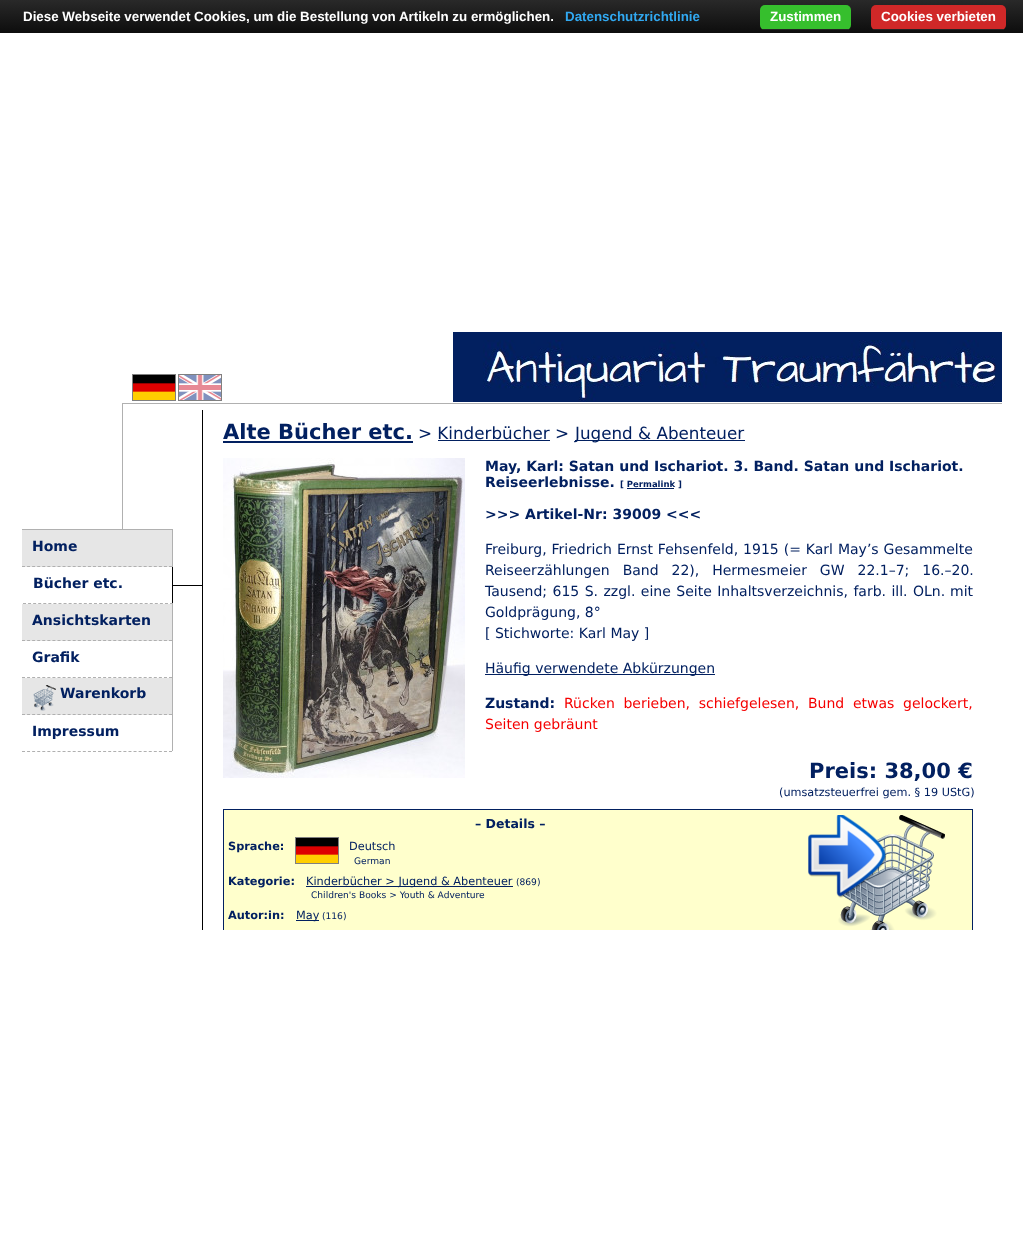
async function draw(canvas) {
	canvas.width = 1023;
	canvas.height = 1257;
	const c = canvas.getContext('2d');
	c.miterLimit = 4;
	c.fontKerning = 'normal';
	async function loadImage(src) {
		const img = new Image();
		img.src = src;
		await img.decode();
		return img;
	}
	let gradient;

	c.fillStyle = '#fff';
	c.fillRect(0, 0, 1023, 1257);
	gradient = c.createLinearGradient(515, 0, 515, 33);
	gradient.addColorStop(0, '#292929');
	gradient.addColorStop(1, '#0d0d0d');
	c.fillStyle = gradient;
	c.fillRect(0, 0, 1023, 33);
	c.font = 'bold 13.35px Liberation Sans';
	c.fillStyle = '#fff';
	c.fillText('Diese Webseite verwendet Cookies, um die Bestellung von Artikeln zu ermöglichen.', 23, 21);
	c.fillStyle = '#31a8f0';
	c.fillText('Datenschutzrichtlinie', 565, 21);
	c.fillStyle = '#36bf2d';
	c.beginPath();
	c.roundRect(760, 5, 91, 25, 5);
	c.fill();
	c.fillStyle = '#222';
	c.fillRect(763, 29, 86, 1);
	c.fillStyle = '#fff';
	c.fillText('Zustimmen', 770, 21);
	c.fillStyle = '#d02828';
	c.beginPath();
	c.roundRect(871, 5, 135, 25, 5);
	c.fill();
	c.fillStyle = '#222';
	c.fillRect(874, 29, 130, 1);
	c.fillStyle = '#fff';
	c.fillText('Cookies verbieten', 881, 21);
	c.fillStyle = '#022060';
	c.fillRect(453, 332, 549, 70);
	c.drawImage(await loadImage('img1.png'), 483, 340, 513, 62);
	c.strokeStyle = '#808080';
	c.strokeRect(132.5, 374.5, 43, 26);
	c.strokeRect(178.5, 374.5, 43, 26);
	c.drawImage(await loadImage('img2.png'), 133, 375, 42, 25);
	c.drawImage(await loadImage('img3.png'), 179, 375, 42, 25);
	for (const [x, y, w, h, color] of [
		[122, 403, 880, 1, '#b0b0b0'],
		[122, 404, 1, 125, '#b0b0b0'],
		[202, 410, 1, 520, '#000'],
	]) {
		c.fillStyle = color;
		c.fillRect(x, y, w, h);
	}
	c.font = 'bold 21px DejaVu Sans';
	c.fillStyle = '#022060';
	c.fillText('Alte Bücher etc.', 223, 439);
	c.fillRect(223, 441, 190, 2);
	c.font = '16.75px DejaVu Sans';
	c.fillText('> Kinderbücher >', 418, 439);
	c.fillRect(438, 440, 112, 1);
	c.fillRect(575, 440, 170, 1);
	c.fillText('Jugend & Abenteuer', 575, 439);
	c.drawImage(await loadImage('img4.png'), 223, 458, 242, 320);
	c.font = 'bold 14px DejaVu Sans';
	c.fillText('May, Karl: Satan und Ischariot. 3. Band. Satan und Ischariot.', 485, 471);
	c.fillText('Reiseerlebnisse.', 485, 487);
	c.font = 'bold 8.5px DejaVu Sans';
	c.fillText('[ Permalink ]', 620, 487);
	c.fillRect(627, 488, 47, 1);
	c.font = 'bold 14px DejaVu Sans';
	c.fillText('>>> Artikel-Nr: 39009 <<<', 485, 519);
	c.wordSpacing = '0.5px';
	c.font = '14px DejaVu Sans';
	c.fillText('Freiburg, Friedrich Ernst Fehsenfeld, 1915 (= Karl May’s Gesammelte', 485, 554);
	c.wordSpacing = '8.5px';
	c.fillText('Reiseerzählungen Band 22), Hermesmeier GW 22.1–7; 16.–20.', 485, 575);
	c.wordSpacing = '1px';
	c.fillText('Tausend; 615 S. zzgl. eine Seite Inhaltsverzeichnis, farb. ill. OLn.', 485, 596);
	c.wordSpacing = '0px';
	for (const [text, x, y] of [
		['mit', 950, 596],
		['Goldprägung, 8°', 485, 617],
		['[ Stichworte: Karl May ]', 485, 638],
	]) {
		c.fillText(text, x, y);
	}
	c.fillRect(485, 674, 230, 1);
	c.fillText('Häufig verwendete Abkürzungen', 485, 673);
	c.font = 'bold 14px DejaVu Sans';
	c.fillText('Zustand:', 485, 708);
	c.wordSpacing = '4.25px';
	c.font = '14px DejaVu Sans';
	c.fillStyle = '#f50000';
	c.fillText('Rücken berieben, schiefgelesen, Bund etwas gelockert,', 564, 708);
	c.wordSpacing = '0px';
	c.fillText('Seiten gebräunt', 485, 729);
	c.font = 'bold 21px DejaVu Sans';
	c.fillStyle = '#022060';
	c.fillText('Preis: 38,00 €', 809, 778);
	c.font = '11.25px DejaVu Sans';
	c.fillText('(umsatzsteuerfrei gem. § 19 UStG)', 779, 796);
	c.fillStyle = '#ffc';
	c.fillRect(224, 810, 748, 120);
	c.save();
	c.beginPath();
	c.rect(203, 410, 780, 520);
	c.clip();
	c.strokeStyle = '#022060';
	c.strokeRect(223.5, 809.5, 749, 151);
	c.restore();
	c.font = 'bold 12.5px DejaVu Sans';
	c.fillStyle = '#022060';
	c.fillText('– Details –', 475, 828);
	c.drawImage(await loadImage('img5.png'), 808, 815, 137, 115);
	c.font = 'bold 11.3px DejaVu Sans';
	c.fillText('Sprache:', 228, 850);
	c.strokeRect(295.5, 837.5, 43, 26);
	c.drawImage(await loadImage('img2.png'), 296, 838, 42, 25);
	c.font = '11.3px DejaVu Sans';
	c.fillText('Deutsch', 349, 850);
	c.font = '9.1px DejaVu Sans';
	c.fillText('German', 354, 864);
	c.font = 'bold 11.3px DejaVu Sans';
	c.fillText('Kategorie:', 228, 885);
	c.fillRect(306, 886, 207, 1);
	c.font = '11.3px DejaVu Sans';
	c.fillText('Kinderbücher > Jugend & Abenteuer', 306, 885);
	c.font = '9.1px DejaVu Sans';
	c.fillText('(869)', 516, 885);
	c.fillText('Children\'s Books > Youth & Adventure', 311, 898);
	c.font = 'bold 11.3px DejaVu Sans';
	c.fillText('Autor:in:', 228, 919);
	c.fillRect(296, 920, 23, 1);
	c.font = '11.3px DejaVu Sans';
	c.fillText('May', 296, 919);
	c.font = '9.1px DejaVu Sans';
	c.fillText('(116)', 322, 919);
	for (const [x, y, w, h, color] of [
		[22, 529, 151, 1, '#b0b0b0'],
		[172, 529, 1, 222, '#b0b0b0'],
		[22, 530, 150, 37, '#e6e6e6'],
	]) {
		c.fillStyle = color;
		c.fillRect(x, y, w, h);
	}
	c.beginPath();
	c.moveTo(22, 566.5);
	c.lineTo(172, 566.5);
	c.strokeStyle = '#b0b0b0';
	c.setLineDash([3, 2.07]);
	c.stroke();
	c.font = 'bold 14px DejaVu Sans';
	c.fillStyle = '#022060';
	c.fillText('Home', 32, 551);
	c.fillStyle = '#000';
	c.fillRect(172, 567, 1, 37);
	c.beginPath();
	c.moveTo(23, 603.5);
	c.lineTo(173, 603.5);
	c.stroke();
	c.fillStyle = '#022060';
	c.fillText('Bücher etc.', 33, 588);
	c.fillStyle = '#e6e6e6';
	c.fillRect(22, 604, 150, 37);
	c.beginPath();
	c.moveTo(22, 640.5);
	c.lineTo(172, 640.5);
	c.stroke();
	c.fillStyle = '#022060';
	c.fillText('Ansichtskarten', 32, 625);
	c.beginPath();
	c.moveTo(22, 677.5);
	c.lineTo(172, 677.5);
	c.stroke();
	c.fillText('Grafik', 32, 662);
	c.fillStyle = '#e6e6e6';
	c.fillRect(22, 678, 150, 37);
	c.beginPath();
	c.moveTo(22, 714.5);
	c.lineTo(172, 714.5);
	c.stroke();
	c.drawImage(await loadImage('img6.png'), 33, 685, 23, 26);
	c.fillStyle = '#022060';
	c.fillText('Warenkorb', 60, 698);
	c.beginPath();
	c.moveTo(22, 751.5);
	c.lineTo(172, 751.5);
	c.stroke();
	c.fillText('Impressum', 32, 736);
	c.fillStyle = '#000';
	c.fillRect(173, 585, 29, 1);
}

draw(document.querySelector('canvas'));
